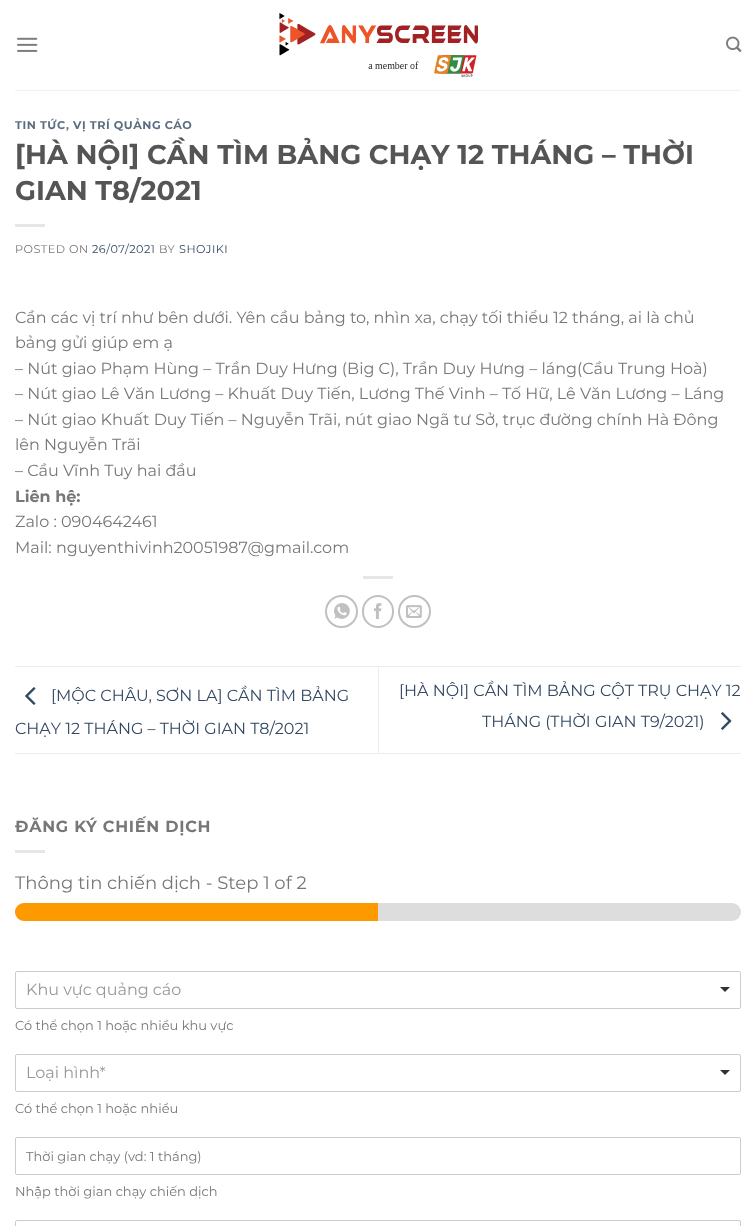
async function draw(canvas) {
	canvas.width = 756;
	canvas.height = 1226;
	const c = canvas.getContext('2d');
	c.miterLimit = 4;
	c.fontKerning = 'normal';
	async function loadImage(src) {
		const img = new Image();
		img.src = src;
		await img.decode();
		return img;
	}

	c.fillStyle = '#fff';
	c.fillRect(0, 0, 756, 1226);
	c.drawImage(await loadImage('img1.png'), 17, 37, 21, 15);
	c.drawImage(await loadImage('img2.png'), 279, 13, 199, 65);
	c.drawImage(await loadImage('img3.png'), 726, 36, 16, 16);
	c.fillStyle = '#f1f1f1';
	c.fillRect(15, 90, 726, 1);
	c.letterSpacing = '0.5px';
	c.font = 'bold 11.25px Montserrat';
	c.fillStyle = '#5c6d81';
	c.fillText('TIN TỨC', 15, 129);
	c.fillStyle = '#777';
	c.fillText(',', 66, 129);
	c.fillStyle = '#5c6d81';
	c.fillText('VỊ TRÍ QUẢNG CÁO', 73, 129);
	c.letterSpacing = '0px';
	c.font = 'bold 27.2px Montserrat';
	c.fillStyle = '#555';
	c.fillText('[HÀ NỘI] CẦN TÌM BẢNG CHẠY 12 THÁNG – THỜI', 15, 164);
	c.fillText('GIAN T8/2021', 15, 200);
	c.fillStyle = '#e6e6e6';
	c.fillRect(15, 224, 30, 3);
	c.letterSpacing = '0.5px';
	c.font = '11.25px Montserrat';
	c.fillStyle = '#777';
	c.fillText('POSTED ON', 15, 253);
	c.fillStyle = '#334862';
	c.fillText('26/07/2021', 92, 253);
	c.fillStyle = '#777';
	c.fillText('BY', 159, 253);
	c.fillStyle = '#334862';
	c.fillText('SHOJIKI', 179, 253);
	c.letterSpacing = '0px';
	c.font = '16px Montserrat';
	c.fillStyle = '#777';
	for (const [text, x, y] of [
		['Cần các vị trí như bên dưới. Yên cầu bảng to, nhìn xa, chạy tối thiểu 12 tháng, ai là chủ', 15, 323],
		['bảng gửi giúp em ạ', 15, 348],
		['– Nút giao Phạm Hùng – Trần Duy Hưng (Big C), Trần Duy Hưng – láng(Cầu Trung Hoà)', 15, 374],
		['– Nút giao Lê Văn Lương – Khuất Duy Tiến, Lương Thế Vinh – Tố Hữ, Lê Văn Lương – Láng', 15, 399],
		['– Nút giao Khuất Duy Tiến – Nguyễn Trãi, nút giao Ngã tư Sở, trục đường chính Hà Đông', 15, 425],
		['lên Nguyễn Trãi', 15, 450],
		['– Cầu Vĩnh Tuy hai đầu', 15, 476],
	]) {
		c.fillText(text, x, y);
	}
	c.font = 'bold 16px Montserrat';
	c.fillText('Liên hệ:', 15, 502);
	c.font = '16px Montserrat';
	c.fillText('Zalo : 0904642461', 15, 527);
	c.fillText('Mail: nguyenthivinh20051987@gmail.com', 15, 553);
	c.fillStyle = '#e6e6e6';
	c.fillRect(363, 576, 30, 3);
	c.beginPath();
	c.arc(341.5, 611.5, 15.5, 0, 2 * Math.PI);
	c.strokeStyle = '#c0c0c0';
	c.lineWidth = 2;
	c.stroke();
	c.drawImage(await loadImage('img4.png'), 334, 603, 16, 16);
	c.beginPath();
	c.roundRect(363, 596, 30, 31, 15);
	c.stroke();
	c.drawImage(await loadImage('img5.png'), 374, 603, 8, 16);
	c.beginPath();
	c.arc(414.5, 611.5, 15.5, 0, 2 * Math.PI);
	c.stroke();
	c.drawImage(await loadImage('img6.png'), 406, 605, 16, 13);
	c.fillStyle = '#ececec';
	c.fillRect(15, 666, 726, 1);
	c.fillRect(15, 753, 726, 1);
	c.drawImage(await loadImage('img7.png'), 25, 687, 11, 18);
	c.fillStyle = '#334862';
	c.fillText('[MỘC CHÂU, SƠN LA] CẦN TÌM BẢNG', 51, 701);
	c.fillText('CHẠY 12 THÁNG – THỜI GIAN T8/2021', 15, 734);
	c.fillStyle = '#ececec';
	c.fillRect(378, 667, 1, 86);
	c.fillStyle = '#334862';
	c.fillText('[HÀ NỘI] CẦN TÌM BẢNG CỘT TRỤ CHẠY 12', 399, 696);
	c.fillText('THÁNG (THỜI GIAN T9/2021)', 482, 727);
	c.drawImage(await loadImage('img8.png'), 721, 712, 11, 18);
	c.letterSpacing = '0.75px';
	c.font = 'bold 16px Montserrat';
	c.fillStyle = '#777';
	c.fillText('ĐĂNG KÝ CHIẾN DỊCH', 15, 832);
	c.fillStyle = '#e6e6e6';
	c.fillRect(15, 850, 30, 3);
	c.letterSpacing = '0px';
	c.font = '18px Montserrat';
	c.fillStyle = '#777';
	c.fillText('Thông tin chiến dịch - Step 1 of 2', 15, 889);
	c.fillStyle = '#ddd';
	c.beginPath();
	c.roundRect(15, 903, 726, 18, 9);
	c.fill();
	c.fillStyle = '#f90';
	c.beginPath();
	c.roundRect(15, 903, 363, 18, [9, 0, 0, 9]);
	c.fill();
	c.beginPath();
	c.roundRect(15.5, 971.5, 725, 37, 1.5);
	c.strokeStyle = '#ccc';
	c.lineWidth = 1;
	c.stroke();
	c.font = '16px Montserrat';
	c.fillStyle = '#999';
	c.fillText('Khu vực quảng cáo', 26, 995);
	c.fillStyle = '#333';
	c.beginPath();
	c.moveTo(720, 987);
	c.lineTo(730, 987);
	c.lineTo(725, 992);
	c.closePath();
	c.fill();
	c.font = '13px Montserrat';
	c.fillStyle = '#777';
	c.fillText('Có thể chọn 1 hoặc nhiều khu vực', 15, 1030);
	c.beginPath();
	c.roundRect(15.5, 1054.5, 725, 37, 1.5);
	c.stroke();
	c.font = '16px Montserrat';
	c.fillStyle = '#999';
	c.fillText('Loại hình*', 26, 1078);
	c.fillStyle = '#333';
	c.beginPath();
	c.moveTo(720, 1070);
	c.lineTo(730, 1070);
	c.lineTo(725, 1075);
	c.closePath();
	c.fill();
	c.font = '13px Montserrat';
	c.fillStyle = '#777';
	c.fillText('Có thể chọn 1 hoặc nhiều', 15, 1113);
	c.beginPath();
	c.roundRect(15.5, 1137.5, 725, 37, 1.5);
	c.stroke();
	c.fillText('Thời gian chạy (vd: 1 tháng)', 26, 1161);
	c.fillText('Nhập thời gian chạy chiến dịch', 15, 1196);
	c.beginPath();
	c.roundRect(15.5, 1220.5, 725, 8, 1.5);
	c.stroke();
}

draw(document.querySelector('canvas'));
